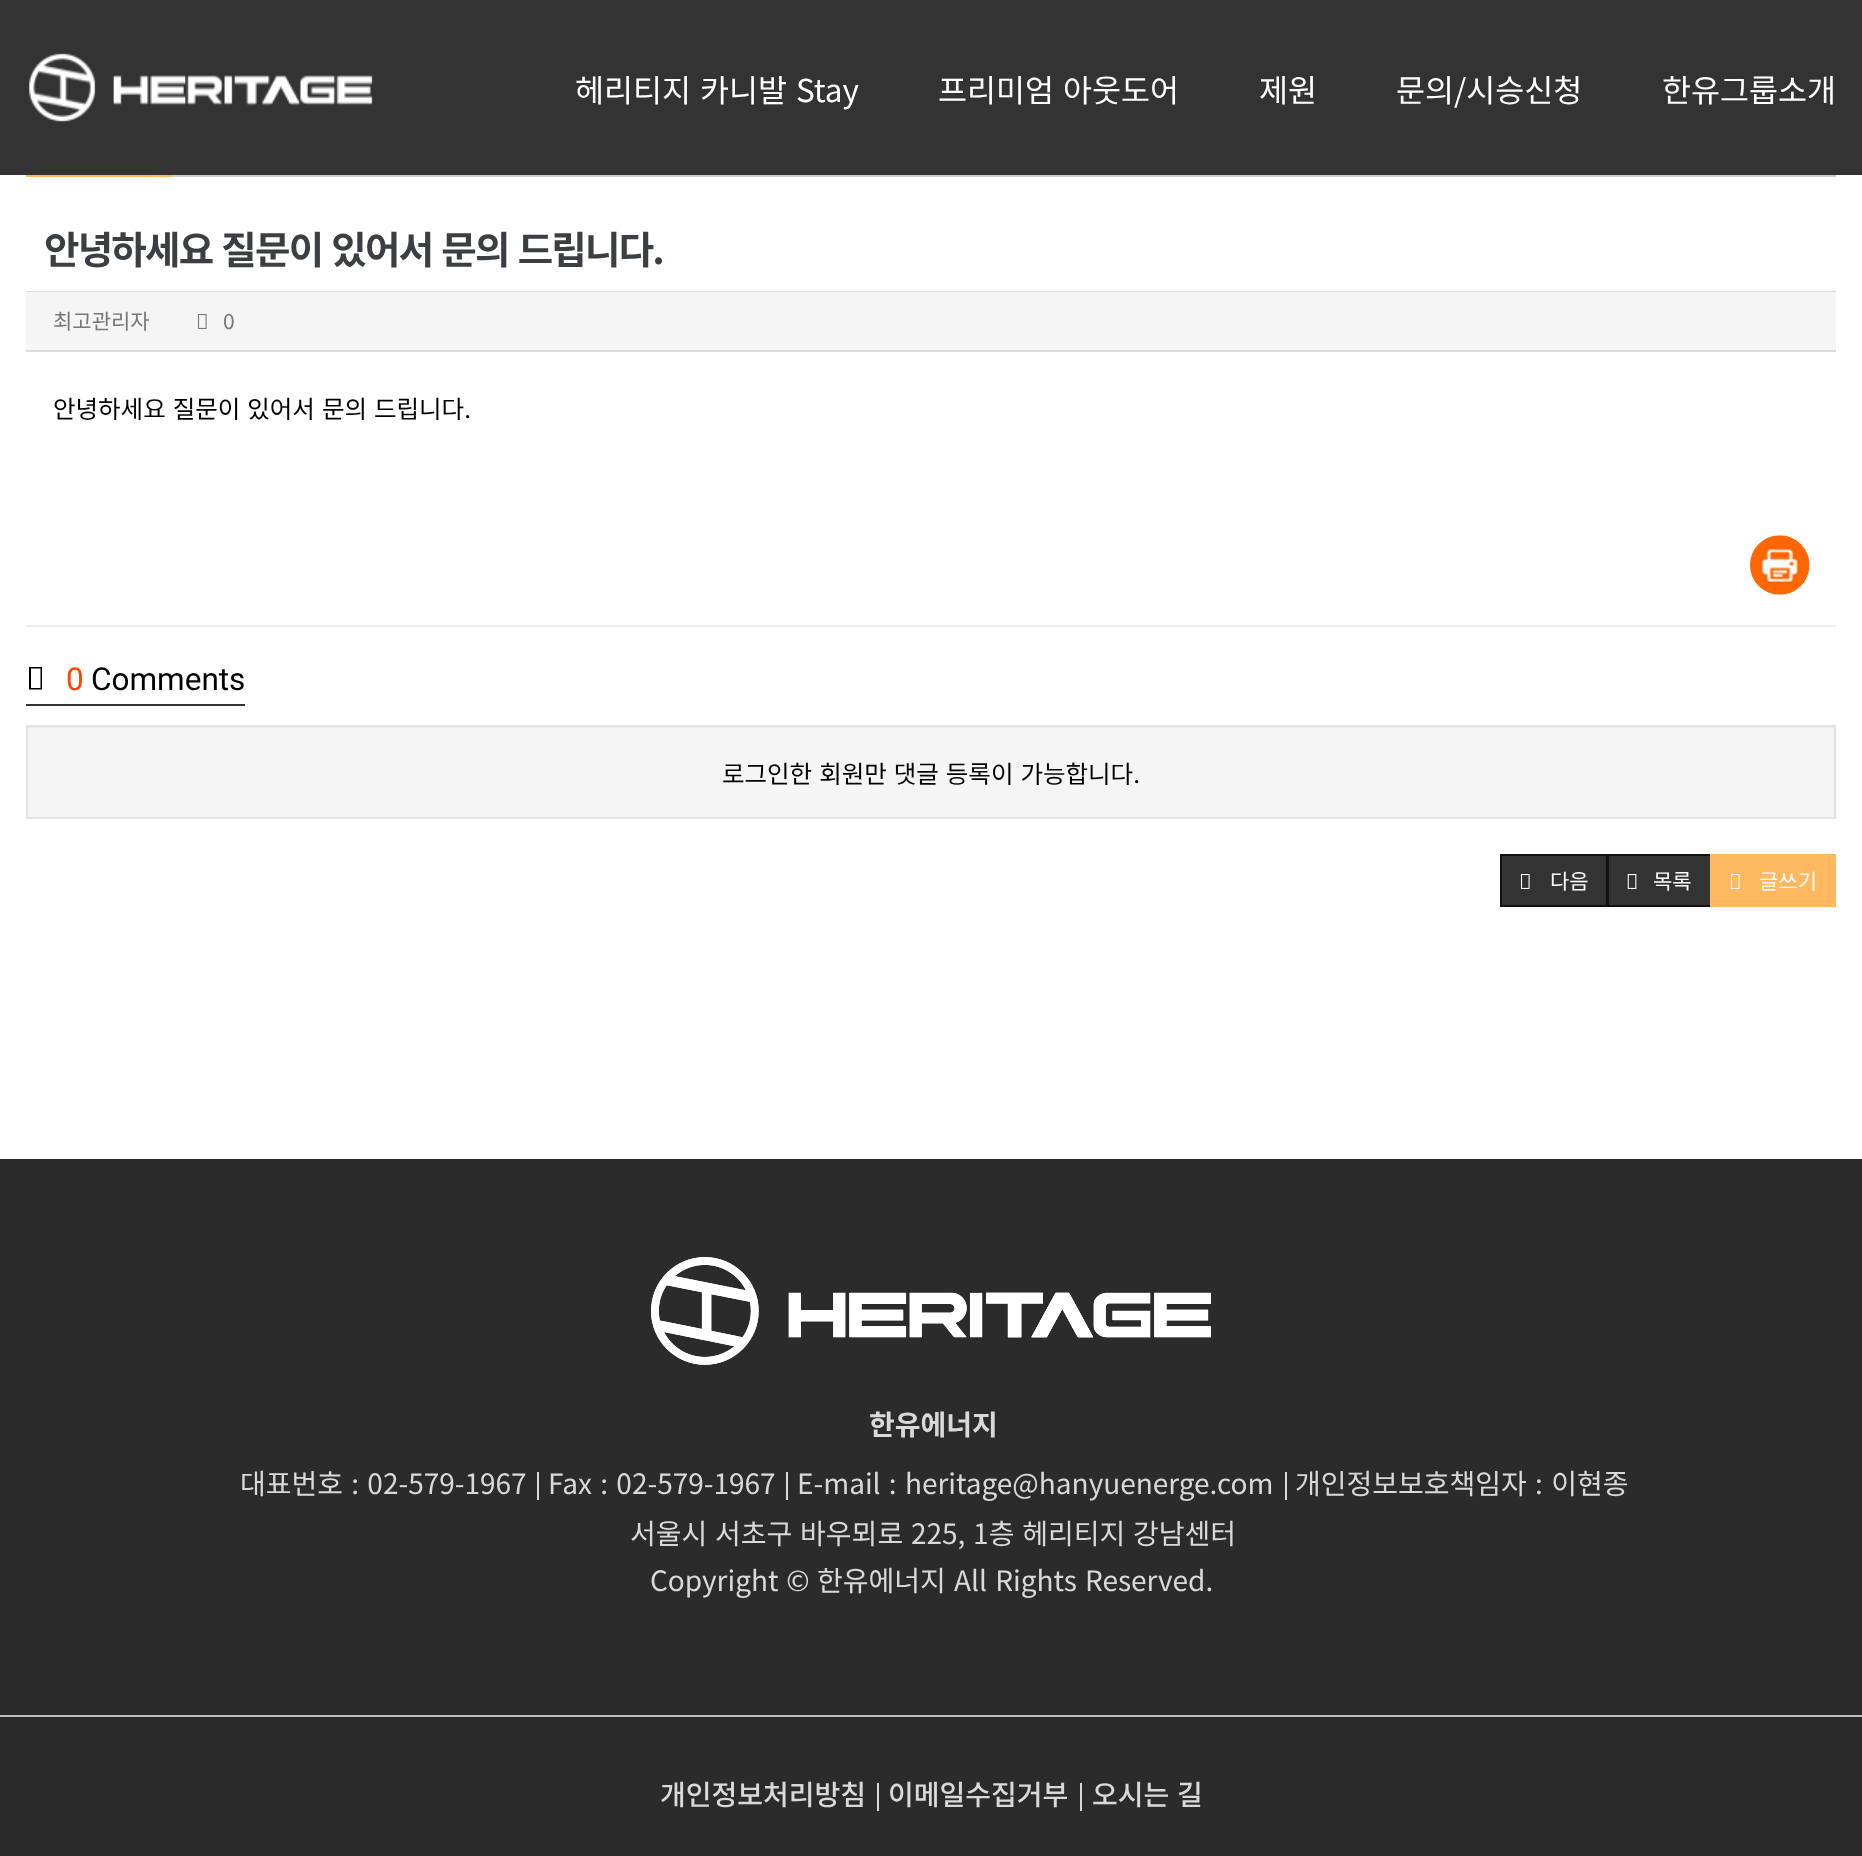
async function draw(canvas) {
	canvas.width = 1862;
	canvas.height = 1856;
	const c = canvas.getContext('2d');
	c.miterLimit = 4;
	c.fontKerning = 'normal';
	async function loadImage(src) {
		const img = new Image();
		img.src = src;
		await img.decode();
		return img;
	}

	c.fillStyle = '#fff';
	c.fillRect(0, 0, 1862, 1856);
	c.fillStyle = '#333';
	c.fillRect(0, 0, 1862, 175);
	c.drawImage(await loadImage('img1.png'), 29, 53, 344, 69);
	c.wordSpacing = '2px';
	c.font = '31.5px Noto Sans KR';
	c.fillStyle = '#fff';
	c.fillText('헤리티지 카니발 Stay', 575, 102);
	c.fillText('프리미엄 아웃도어', 938, 102);
	c.wordSpacing = '0px';
	for (const [text, x, y] of [
		['제원', 1259, 102],
		['문의/시승신청', 1396, 102],
		['한유그룹소개', 1662, 102],
	]) {
		c.fillText(text, x, y);
	}
	c.fillStyle = '#ccc';
	c.fillRect(172, 175, 1664, 2);
	c.fillStyle = '#ffb85f';
	c.fillRect(26, 175, 146, 2);
	c.letterSpacing = '-1.75px';
	c.wordSpacing = '2px';
	c.font = 'bold 38.5px Noto Sans KR';
	c.fillStyle = '#3b3e43';
	c.fillText('안녕하세요 질문이 있어서 문의 드립니다.', 44, 264);
	for (const [x, y, w, h, color] of [
		[26, 291, 1810, 1, '#ddd'],
		[26, 292, 1810, 58, '#f5f5f5'],
		[26, 350, 1810, 2, '#ddd'],
	]) {
		c.fillStyle = color;
		c.fillRect(x, y, w, h);
	}
	c.letterSpacing = '0px';
	c.wordSpacing = '0px';
	c.font = '21px Noto Sans KR';
	c.fillStyle = '#777';
	c.fillText('최고관리자', 53, 329);
	c.drawImage(await loadImage('img2.png'), 198, 314, 9, 15);
	c.fillText('0', 223, 329);
	c.wordSpacing = '1.5px';
	c.font = '24.5px Noto Sans KR';
	c.fillStyle = '#000';
	c.fillText('안녕하세요 질문이 있어서 문의 드립니다.', 53, 418);
	c.drawImage(await loadImage('img3.png'), 1750, 535, 60, 60);
	c.fillStyle = '#eee';
	c.fillRect(26, 625, 1810, 2);
	c.fillStyle = '#333';
	c.fillRect(26, 704, 219, 2);
	c.fillStyle = '#000';
	c.beginPath();
	c.moveTo(29, 689.5);
	c.lineTo(29, 667);
	c.lineTo(42, 667);
	c.lineTo(42, 689.5);
	c.closePath();
	c.moveTo(31, 688);
	c.lineTo(40.5, 688);
	c.lineTo(40.5, 668.5);
	c.lineTo(31, 668.5);
	c.closePath();
	c.fill();
	c.wordSpacing = '0px';
	c.font = '31.5px Roboto';
	c.fillStyle = '#ff4500';
	c.fillText('0', 66, 690);
	c.fillStyle = '#000';
	c.fillText('Comments', 91, 690);
	c.fillStyle = '#f5f5f5';
	c.fillRect(28, 728, 1806, 89);
	c.fillStyle = '#e9e9e9';
	c.fillRect(28, 727, 1806, 1);
	c.strokeStyle = '#e3e3e3';
	c.lineWidth = 2;
	c.strokeRect(27, 726, 1808, 92);
	c.wordSpacing = '1.5px';
	c.font = '24.5px Noto Sans KR';
	c.fillStyle = '#000';
	c.fillText('로그인한 회원만 댓글 등록이 가능합니다.', 722, 783);
	c.fillStyle = '#333';
	c.beginPath();
	c.rect(1501, 855, 106, 51);
	c.fill();
	c.strokeStyle = '#111';
	c.stroke();
	c.drawImage(await loadImage('img4.png'), 1520, 874, 10, 15);
	c.wordSpacing = '0px';
	c.font = '21px Noto Sans KR';
	c.fillStyle = '#fff';
	c.fillText('다음', 1550, 889);
	c.fillStyle = '#333';
	c.beginPath();
	c.rect(1608, 855, 103, 51);
	c.fill();
	c.stroke();
	c.drawImage(await loadImage('img5.png'), 1627, 874, 10, 15);
	c.fillStyle = '#fff';
	c.fillText('목록', 1653, 889);
	c.fillStyle = '#ffb85f';
	c.fillRect(1710, 854, 126, 53);
	c.drawImage(await loadImage('img6.png'), 1730, 874, 10, 15);
	c.fillStyle = '#fff';
	c.fillText('글쓰기', 1759, 889);
	c.fillStyle = '#2b2b2b';
	c.fillRect(0, 1159, 1862, 697);
	c.drawImage(await loadImage('img7.png'), 651, 1257, 560, 108);
	c.font = 'bold 28px Noto Sans KR';
	c.fillStyle = '#d9d9d9';
	c.fillText('한유에너지', 869, 1435);
	c.wordSpacing = '2px';
	c.font = '28px Noto Sans KR';
	c.fillText('대표번호 : 02-579-1967', 240, 1494);
	c.fillRect(537, 1472, 2, 28);
	c.fillText('Fax : 02-579-1967', 548, 1494);
	c.fillRect(786, 1472, 2, 28);
	c.fillText('E-mail : heritage@hanyuenerge.com', 797, 1494);
	c.fillRect(1285, 1472, 2, 28);
	c.fillText('개인정보보호책임자 : 이현종', 1295, 1494);
	c.wordSpacing = '1.5px';
	c.fillText('서울시 서초구 바우뫼로 225, 1층 헤리티지 강남센터', 630, 1544);
	c.fillText('Copyright ©', 650, 1591);
	c.wordSpacing = '0px';
	c.fillText('한유에너지', 817, 1591);
	c.wordSpacing = '2px';
	c.fillText('All Rights Reserved.', 954, 1591);
	c.fillStyle = '#bfbfbf';
	c.fillRect(0, 1715, 1862, 2);
	c.wordSpacing = '0px';
	c.font = '500 28px Noto Sans KR';
	c.fillStyle = '#d9d9d9';
	c.fillText('개인정보처리방침', 660, 1805);
	c.fillRect(877, 1783, 2, 28);
	c.fillText('이메일수집거부', 888, 1805);
	c.fillRect(1080, 1783, 2, 28);
	c.wordSpacing = '1.5px';
	c.fillText('오시는 길', 1092, 1805);
}

draw(document.querySelector('canvas'));
